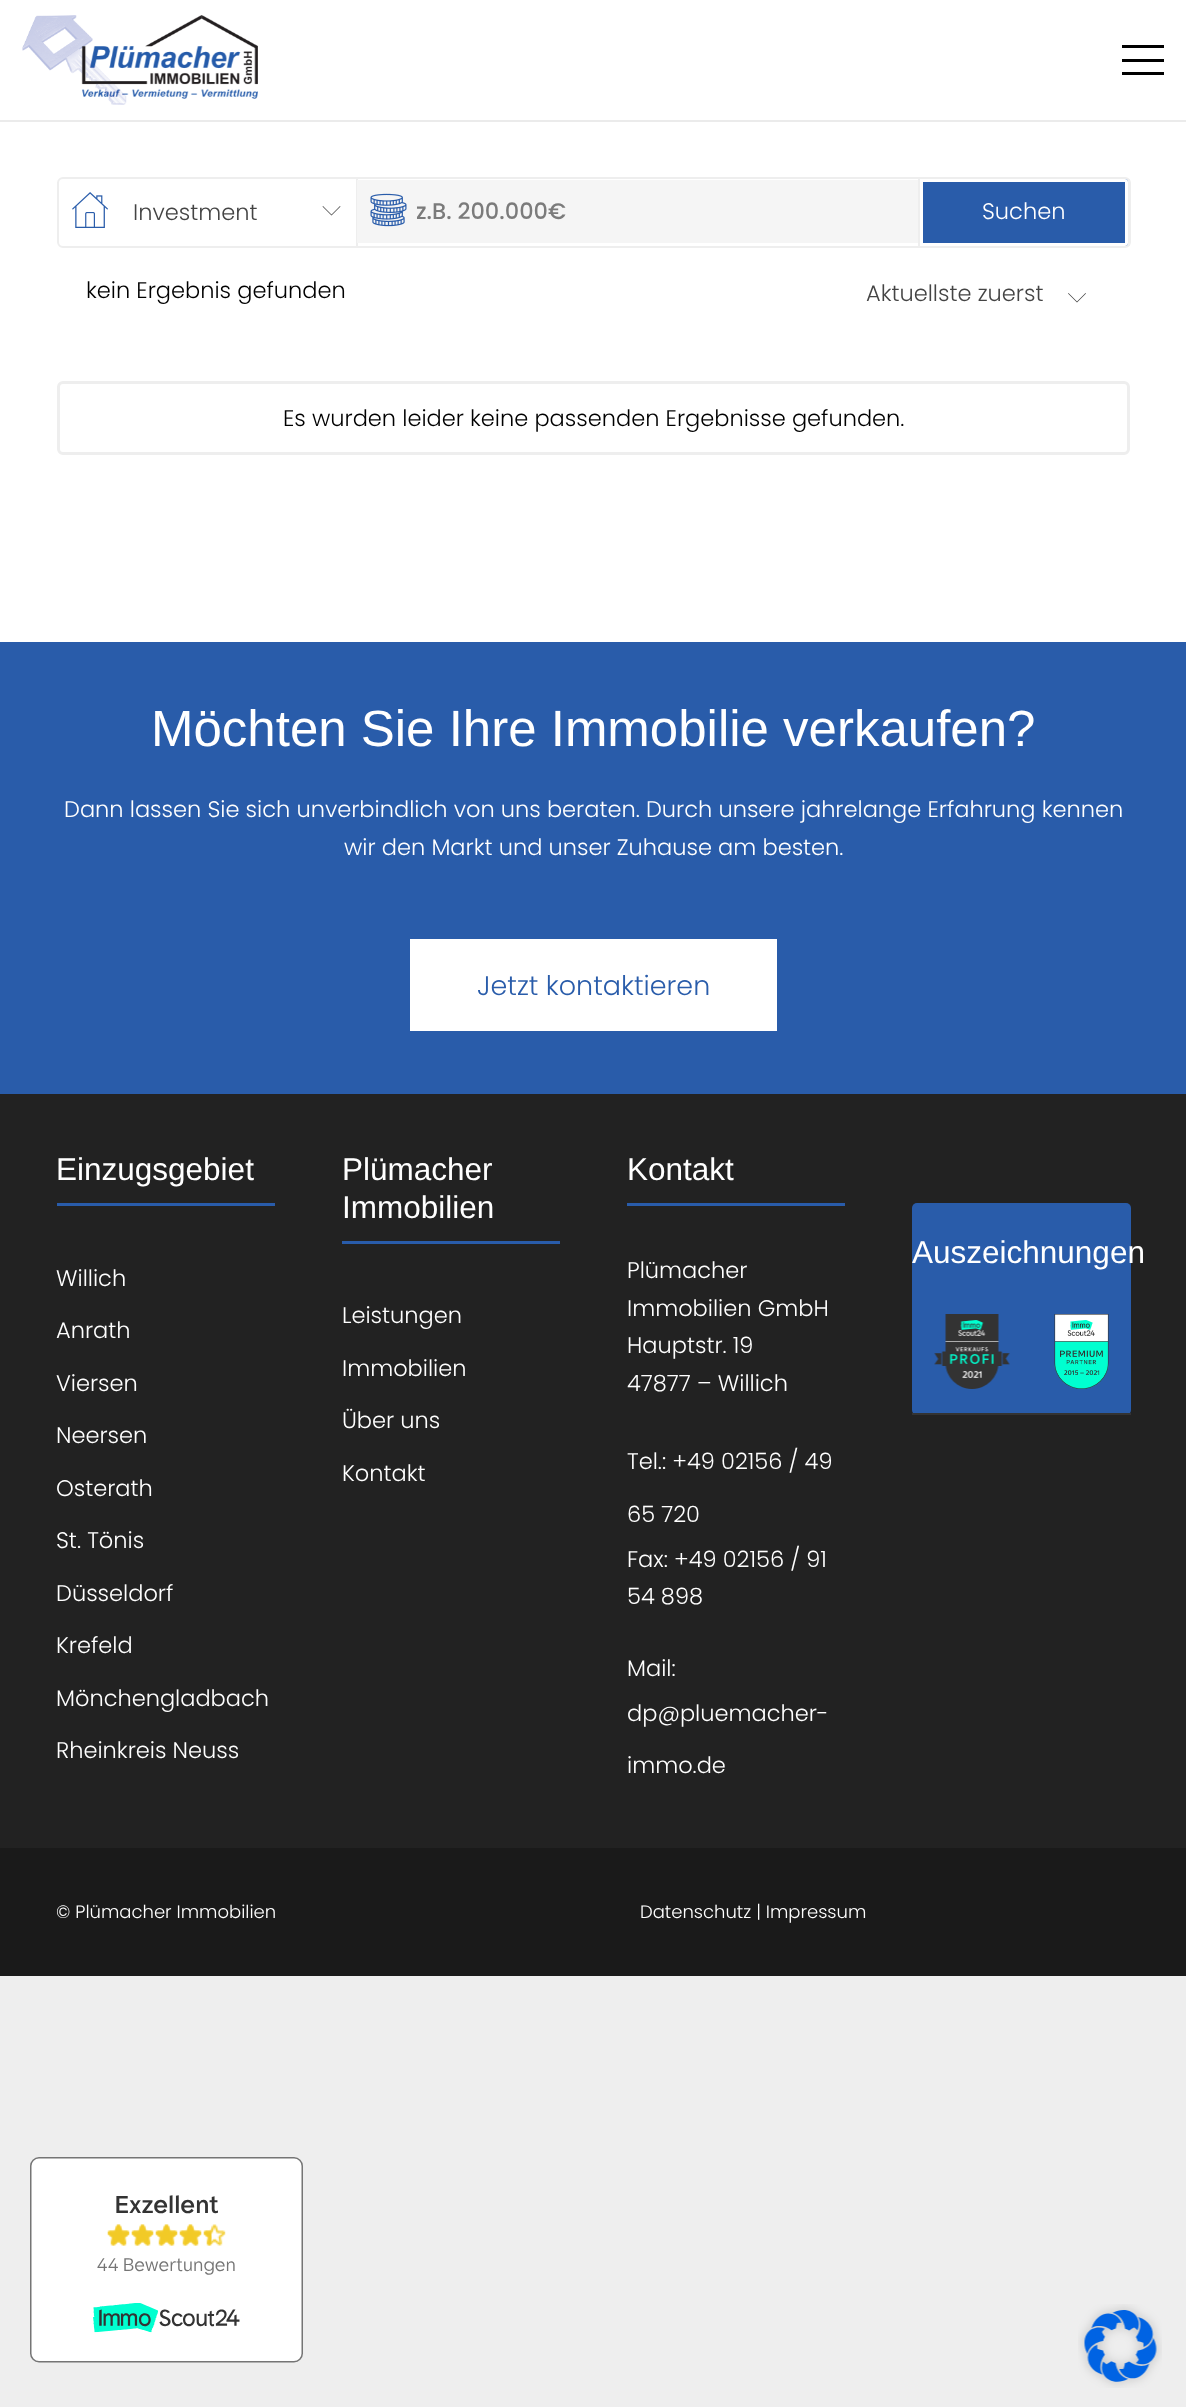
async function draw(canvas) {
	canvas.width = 1186;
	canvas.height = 2407;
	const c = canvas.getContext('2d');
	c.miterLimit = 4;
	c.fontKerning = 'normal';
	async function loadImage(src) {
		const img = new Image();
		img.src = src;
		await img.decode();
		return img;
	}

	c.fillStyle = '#eee';
	c.fillRect(0, 0, 1186, 2407);
	c.fillStyle = '#fff';
	c.fillRect(0, 0, 1186, 642);
	c.fillStyle = '#ebebeb';
	c.beginPath();
	c.moveTo(0, 120);
	c.lineTo(0, 122);
	c.lineTo(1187, 122);
	c.lineTo(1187, 2);
	c.lineTo(1186, 2);
	c.lineTo(1186, 120);
	c.closePath();
	c.fill();
	c.drawImage(await loadImage('img1.png'), 22, 15, 236, 90);
	for (const [x, y, w, h, color] of [
		[1122, 59, 42, 3, '#000'],
		[1122, 45, 42, 3, '#000'],
		[1122, 72, 42, 3, '#000'],
	]) {
		c.fillStyle = color;
		c.fillRect(x, y, w, h);
	}
	c.beginPath();
	c.roundRect(58, 178, 1072, 69, 5);
	c.strokeStyle = '#eee';
	c.lineWidth = 2;
	c.stroke();
	c.fillStyle = '#eee';
	c.fillRect(356, 179, 2, 67);
	c.drawImage(await loadImage('img2.png'), 72, 192, 36, 36);
	c.font = '300 22.5px Poppins';
	c.fillStyle = '#444';
	c.fillText('Investment', 133, 220);
	c.beginPath();
	c.moveTo(340, 206);
	c.lineTo(340.5, 206.5);
	c.lineTo(331.5, 215.5);
	c.lineTo(322.5, 206.5);
	c.lineTo(323, 206);
	c.lineTo(331.5, 214.5);
	c.closePath();
	c.fill();
	c.fillStyle = '#eee';
	c.fillRect(918, 179, 2, 67);
	c.fillStyle = '#f5f5f5';
	c.fillRect(357, 180, 561, 63);
	c.drawImage(await loadImage('img3.png'), 370, 193, 37, 34);
	c.font = '500 22.5px Poppins';
	c.fillStyle = '#7b7b7b';
	c.fillText('z.B. 200.000€', 416, 219);
	c.fillStyle = '#eee';
	c.fillRect(1128, 179, 2, 67);
	c.fillStyle = '#295caa';
	c.beginPath();
	c.roundRect(920, 179, 208, 67, [0, 3, 3, 0]);
	c.fill();
	c.beginPath();
	c.roundRect(921.5, 180.5, 205, 64, [0, 1.5, 1.5, 0]);
	c.strokeStyle = '#fff';
	c.lineWidth = 3;
	c.stroke();
	c.font = '300 22.5px Poppins';
	c.fillStyle = '#fff';
	c.fillText('Suchen', 982, 219);
	c.fillStyle = '#000';
	c.fillText('kein Ergebnis gefunden', 86, 298);
	c.fillStyle = '#444';
	c.fillText('Aktuellste zuerst', 866, 301);
	c.beginPath();
	c.moveTo(1085.5, 293);
	c.lineTo(1086, 293.5);
	c.lineTo(1077, 302.5);
	c.lineTo(1068, 293.5);
	c.lineTo(1068.5, 293);
	c.lineTo(1077, 301.5);
	c.closePath();
	c.fill();
	c.beginPath();
	c.roundRect(58.5, 382.5, 1070, 71, 4.5);
	c.strokeStyle = '#eee';
	c.stroke();
	c.fillStyle = '#000';
	c.fillText('Es wurden leider keine passenden Ergebnisse gefunden.', 283, 426);
	c.fillStyle = '#295caa';
	c.fillRect(0, 642, 1186, 452);
	c.font = '51px Liberation Sans';
	c.fillStyle = '#fff';
	c.fillText('Möchten Sie Ihre Immobilie verkaufen?', 151, 746);
	c.font = '300 22.5px Poppins';
	c.fillText('Dann lassen Sie sich unverbindlich von uns beraten. Durch unsere jahrelange Erfahrung kennen', 64, 817);
	c.fillText('wir den Markt und unser Zuhause am besten.', 344, 855);
	c.fillRect(410, 939, 367, 92);
	c.font = '300 27px Poppins';
	c.fillStyle = '#295caa';
	c.fillText('Jetzt kontaktieren', 477, 995);
	c.fillStyle = '#222';
	c.fillRect(0, 1094, 1186, 754);
	c.fillStyle = '#295caa';
	c.fillRect(57, 1203, 218, 3);
	c.font = '31.5px Liberation Sans';
	c.fillStyle = '#fff';
	c.fillText('Einzugsgebiet', 56, 1180);
	c.font = '300 22.5px Poppins';
	for (const [text, x, y] of [
		['Willich', 56, 1286],
		['Anrath', 56, 1338],
		['Viersen', 56, 1391],
		['Neersen', 56, 1443],
		['Osterath', 56, 1496],
		['St. Tönis', 56, 1548],
		['Düsseldorf', 56, 1601],
		['Krefeld', 56, 1653],
		['Mönchengladbach', 56, 1706],
		['Rheinkreis Neuss', 56, 1758],
	]) {
		c.fillText(text, x, y);
	}
	c.fillStyle = '#295caa';
	c.fillRect(342, 1241, 218, 3);
	c.font = '31.5px Liberation Sans';
	c.fillStyle = '#fff';
	c.fillText('Plümacher', 342, 1180);
	c.fillText('Immobilien', 342, 1218);
	c.font = '300 22.5px Poppins';
	for (const [text, x, y] of [
		['Leistungen', 342, 1323],
		['Immobilien', 342, 1376],
		['Über uns', 342, 1428],
		['Kontakt', 342, 1481],
	]) {
		c.fillText(text, x, y);
	}
	c.fillStyle = '#295caa';
	c.fillRect(627, 1203, 218, 3);
	c.font = '31.5px Liberation Sans';
	c.fillStyle = '#fff';
	c.fillText('Kontakt', 627, 1180);
	c.font = '300 22.5px Poppins';
	for (const [text, x, y] of [
		['Plümacher', 627, 1278],
		['Immobilien GmbH', 627, 1316],
		['Hauptstr. 19', 627, 1353],
		['47877 – Willich', 627, 1391],
		['Tel.: +49 02156 / 49', 627, 1469],
		['65 720', 627, 1522],
		['Fax: +49 02156 / 91', 627, 1567],
		['54 898', 627, 1604],
		['Mail:', 627, 1676],
		['dp@pluemacher-', 627, 1721],
		['immo.de', 627, 1773],
	]) {
		c.fillText(text, x, y);
	}
	c.fillStyle = '#295caa';
	c.beginPath();
	c.roundRect(912, 1203, 219, 212, 5);
	c.fill();
	c.font = '31.5px Liberation Sans';
	c.fillStyle = '#fff';
	c.fillText('Auszeichnungen', 912, 1263);
	c.fillStyle = '#333';
	c.fillRect(912, 1413, 219, 2);
	c.drawImage(await loadImage('img4.png'), 1054, 1314, 55, 75);
	c.drawImage(await loadImage('img5.png'), 934, 1314, 76, 75);
	c.drawImage(await loadImage('img6.png'), 30, 2157, 273, 206);
	c.fillStyle = '#1a1a1a';
	c.fillRect(0, 1848, 1186, 128);
	c.font = '300 18px Poppins';
	c.fillStyle = '#fff';
	c.fillText('© Plümacher Immobilien', 56, 1918);
	c.fillText('Datenschutz | Impressum', 640, 1918);
	c.drawImage(await loadImage('img7.png'), 1078, 2304, 84, 84);
}

draw(document.querySelector('canvas'));
